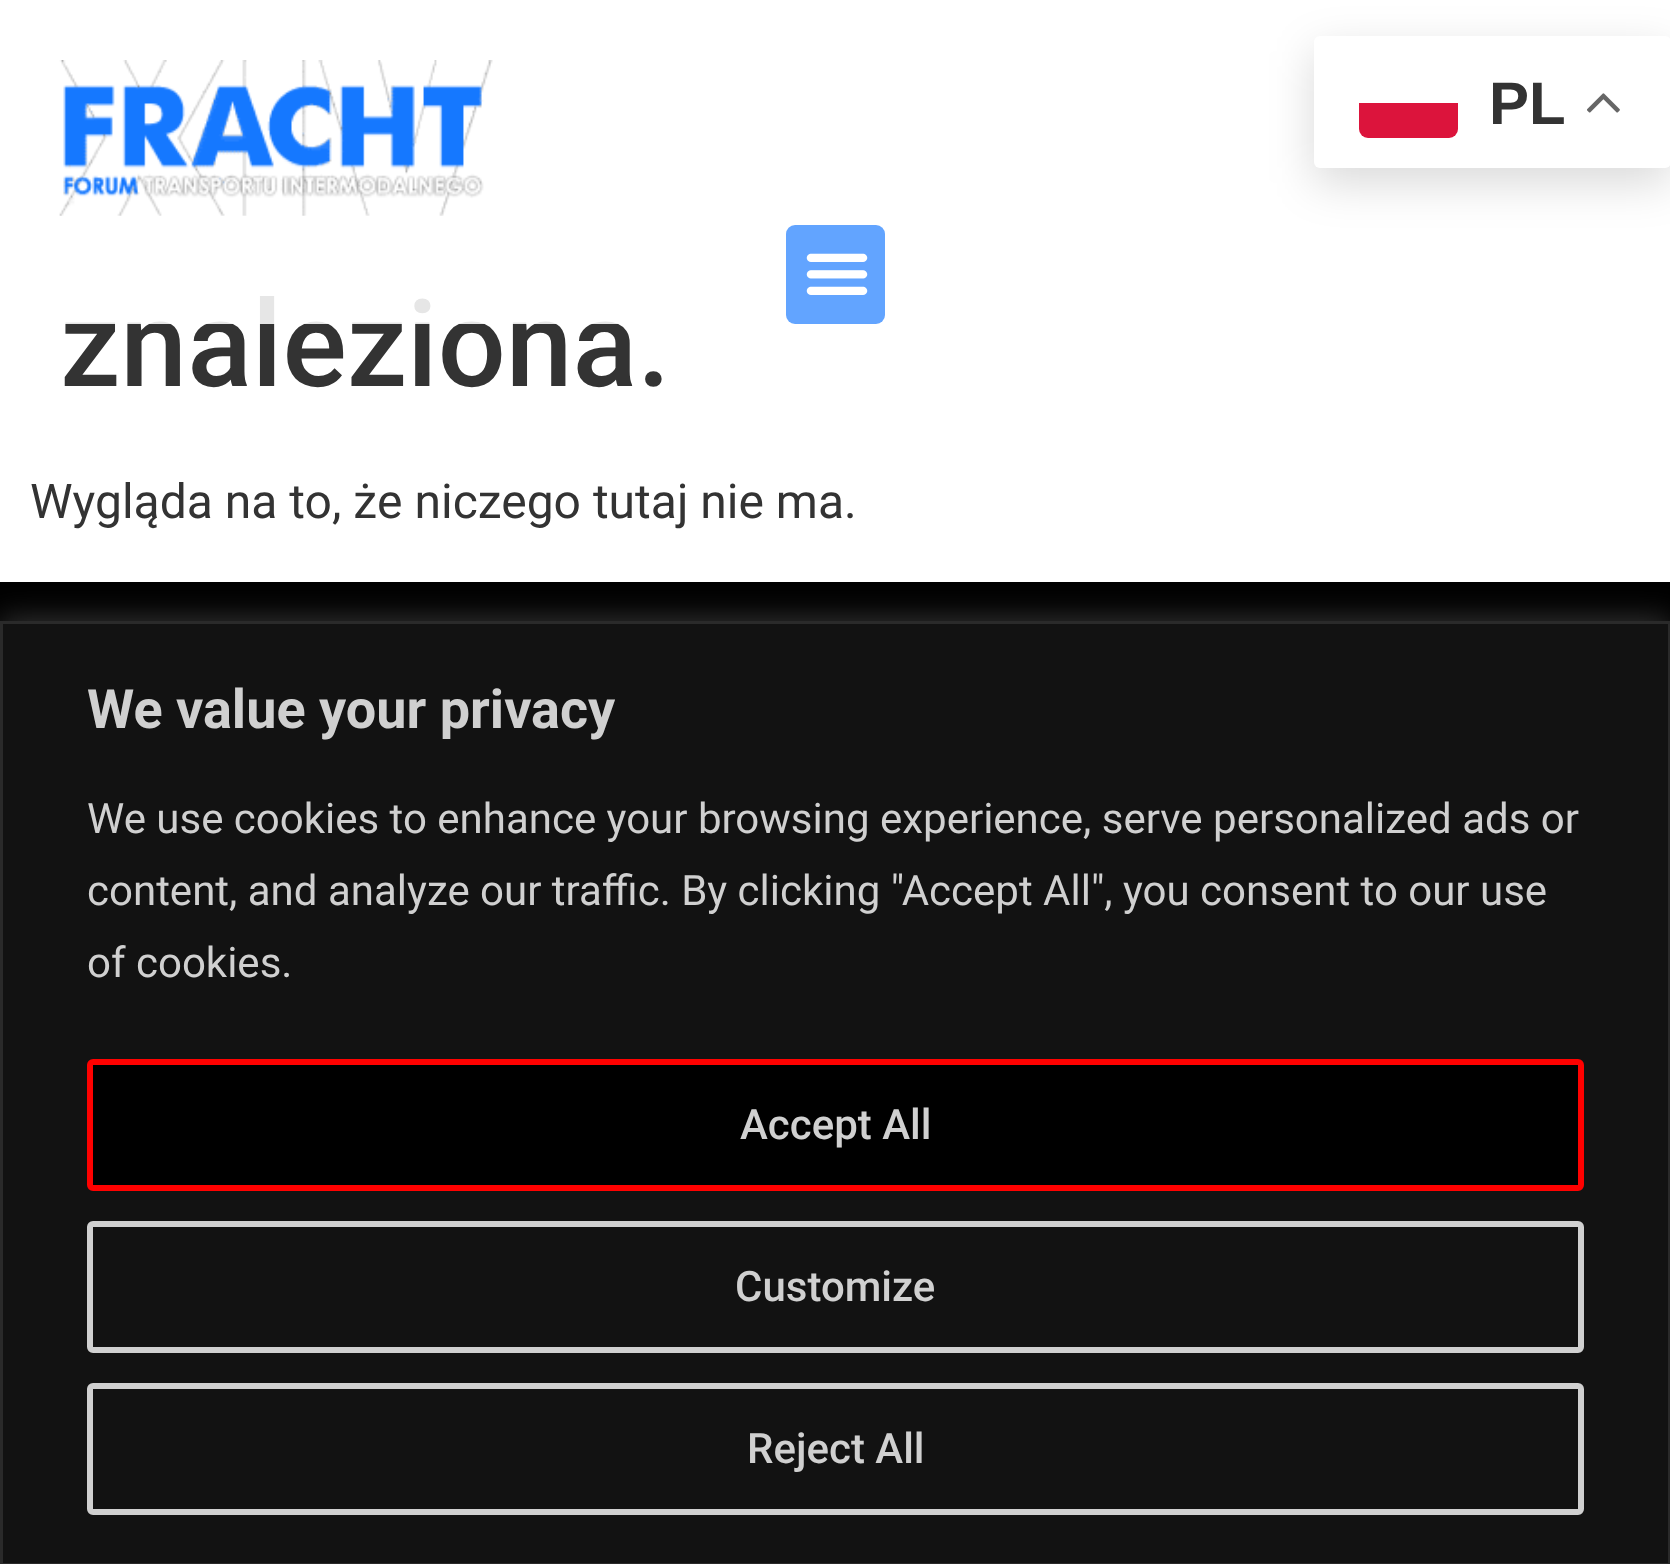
async function draw(canvas) {
	canvas.width = 1670;
	canvas.height = 1564;
	const c = canvas.getContext('2d');
	c.miterLimit = 4;
	c.fontKerning = 'normal';
	async function loadImage(src) {
		const img = new Image();
		img.src = src;
		await img.decode();
		return img;
	}

	c.fillStyle = '#fff';
	c.fillRect(0, 0, 1670, 1564);
	c.drawImage(await loadImage('img1.png'), 59, 60, 434, 156);
	c.fillStyle = '#00000026';
	c.filter = 'blur(22.5px)';
	c.beginPath();
	c.roundRect(1314, 51, 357, 132, 6);
	c.fill();
	c.filter = 'none';
	c.fillStyle = '#fff';
	c.beginPath();
	c.roundRect(1314, 36, 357, 132, 6);
	c.fill();
	c.fillStyle = '#dc143c';
	c.beginPath();
	c.roundRect(1359, 103, 99, 35, [0, 0, 9, 9]);
	c.fill();
	c.font = 'bold 60px Liberation Sans';
	c.fillStyle = '#333';
	c.fillText('PL', 1489, 124);
	c.drawImage(await loadImage('img2.png'), 1587, 93, 33, 20);
	c.font = '500 120px Roboto';
	c.fillText('znaleziona.', 60, 386);
	c.fillStyle = '#ffffffe0';
	c.fillRect(65, 296, 553, 28);
	c.fillStyle = '#1578ffab';
	c.beginPath();
	c.roundRect(786, 225, 99, 99, 9);
	c.fill();
	c.drawImage(await loadImage('img3.png'), 806, 253, 62, 42);
	c.font = '48px Roboto';
	c.fillStyle = '#333';
	c.fillText('Wygląda na to, że niczego tutaj nie ma.', 30, 518);
	c.fillStyle = '#000';
	c.fillRect(0, 582, 1670, 39);
	c.fillStyle = '#acabab4d';
	c.filter = 'blur(15px)';
	c.beginPath();
	c.rect(0, 618, 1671, 945);
	c.fill();
	c.filter = 'none';
	c.fillStyle = '#121212';
	c.beginPath();
	c.rect(1.5, 622.5, 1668, 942);
	c.fill();
	c.strokeStyle = '#2a2a2a';
	c.lineWidth = 3;
	c.stroke();
	c.font = 'bold 54px Roboto';
	c.fillStyle = '#d0d0d0';
	c.fillText('We value your privacy', 87, 728);
	c.font = '42px Roboto';
	for (const [text, x, y] of [
		['We use cookies to enhance your browsing experience, serve personalized ads or', 87, 833],
		['content, and analyze our traffic. By clicking "Accept All", you consent to our use', 87, 905],
		['of cookies.', 87, 977],
	]) {
		c.fillText(text, x, y);
	}
	c.fillStyle = '#000';
	c.beginPath();
	c.roundRect(90, 1062, 1491, 126, 3);
	c.fill();
	c.strokeStyle = '#ff0100';
	c.lineWidth = 6;
	c.stroke();
	c.font = '500 42px Roboto';
	c.fillStyle = '#d0d0d0';
	c.fillText('Accept All', 740, 1139);
	c.beginPath();
	c.roundRect(90, 1224, 1491, 126, 3);
	c.strokeStyle = '#d0d0d0';
	c.stroke();
	c.fillText('Customize', 735, 1301);
	c.beginPath();
	c.roundRect(90, 1386, 1491, 126, 3);
	c.stroke();
	c.fillText('Reject All', 747, 1463);
}

draw(document.querySelector('canvas'));
